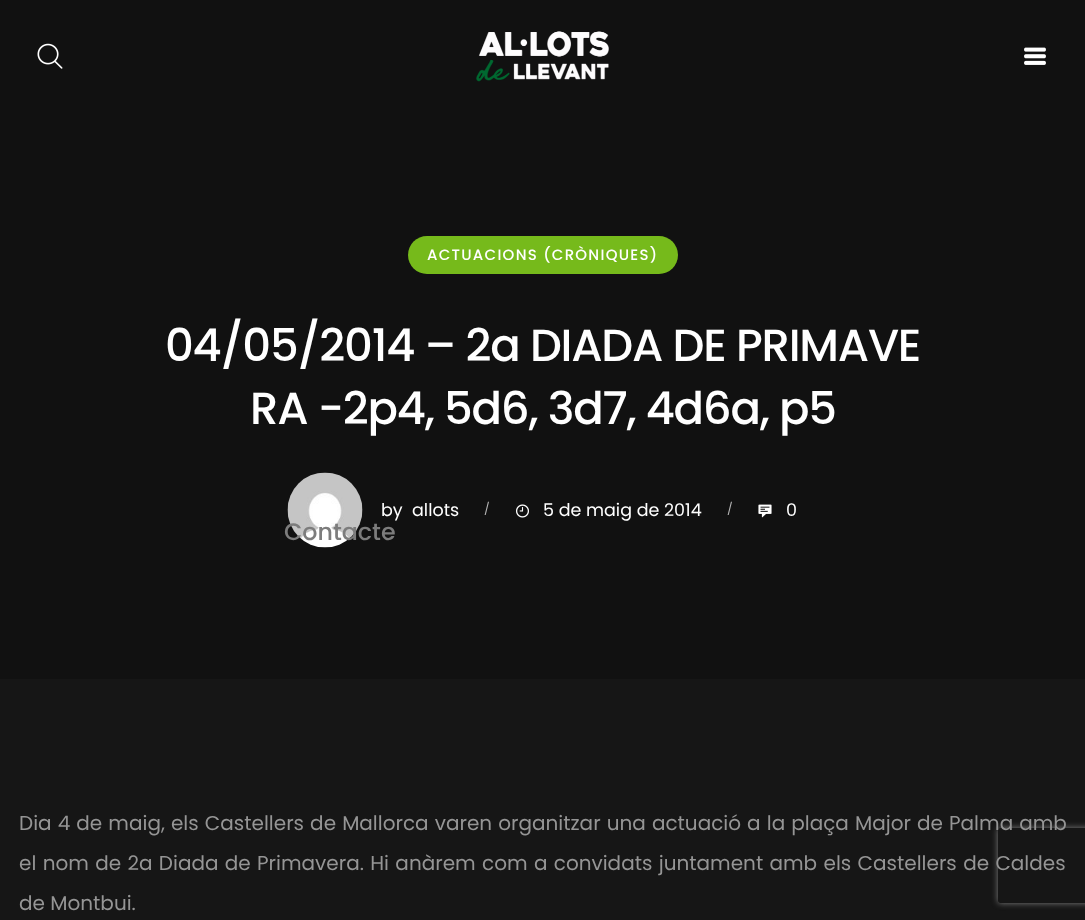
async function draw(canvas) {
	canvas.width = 1085;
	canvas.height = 920;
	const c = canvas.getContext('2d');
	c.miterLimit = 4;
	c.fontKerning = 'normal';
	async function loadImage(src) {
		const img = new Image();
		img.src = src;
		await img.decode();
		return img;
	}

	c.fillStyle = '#161616';
	c.fillRect(0, 0, 1085, 920);
	c.fillStyle = '#111';
	c.fillRect(0, 0, 1085, 679);
	c.fillStyle = '#76ba1b';
	c.beginPath();
	c.roundRect(408, 236, 270, 38, 19);
	c.fill();
	c.letterSpacing = '1.25px';
	c.font = '500 15px Poppins';
	c.fillStyle = '#fff';
	c.fillText('ACTUACIONS (CRÒNIQUES)', 427, 260);
	c.letterSpacing = '-1.25px';
	c.font = '500 45px Poppins';
	c.fillText('04/05/2014 – 2a DIADA DE PRIMAVE', 165, 361);
	c.fillText('RA -2p4, 5d6, 3d7, 4d6a, p5', 250, 424);
	c.drawImage(await loadImage('img1.png'), 287, 472, 76, 76);
	c.letterSpacing = '0px';
	c.font = '17.5px Poppins';
	c.fillText('by', 381, 516);
	c.fillText('allots', 412, 516);
	c.font = '12px Poppins';
	c.fillStyle = '#b8b8b8';
	c.fillText('/', 484, 513);
	c.drawImage(await loadImage('img2.png'), 516, 504, 13, 14);
	c.font = '17.5px Poppins';
	c.fillStyle = '#fff';
	c.fillText('5 de maig de 2014', 543, 516);
	c.font = '12px Poppins';
	c.fillStyle = '#b8b8b8';
	c.fillText('/', 727, 513);
	c.drawImage(await loadImage('img3.png'), 758, 504, 14, 14);
	c.font = '17.5px Poppins';
	c.fillStyle = '#fff';
	c.fillText('0', 786, 516);
	c.drawImage(await loadImage('img4.png'), 37, 43, 26, 26);
	c.drawImage(await loadImage('img5.png'), 476, 31, 133, 51);
	c.drawImage(await loadImage('img6.png'), 1024, 47, 22, 18);
	c.font = '500 23.75px Poppins';
	c.fillStyle = '#7c7c7c';
	c.fillText('Contacte', 284, 540);
	c.save();
	c.beginPath();
	c.moveTo(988, 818);
	c.lineTo(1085, 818);
	c.lineTo(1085, 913);
	c.lineTo(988, 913);
	c.closePath();
	c.moveTo(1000.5, 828);
	c.lineTo(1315.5, 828);
	c.bezierCurveTo(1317, 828, 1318, 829, 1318, 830.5);
	c.lineTo(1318, 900.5);
	c.bezierCurveTo(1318, 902, 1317, 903, 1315.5, 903);
	c.lineTo(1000.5, 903);
	c.bezierCurveTo(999, 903, 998, 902, 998, 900.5);
	c.lineTo(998, 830.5);
	c.bezierCurveTo(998, 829, 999, 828, 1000.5, 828);
	c.closePath();
	c.clip('evenodd');
	c.fillStyle = '#808080';
	c.filter = 'blur(3px)';
	c.beginPath();
	c.roundRect(998, 828, 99, 75, 2.5);
	c.fill();
	c.filter = 'none';
	c.restore();
	c.wordSpacing = '0.75px';
	c.font = '20px Poppins';
	c.fillStyle = '#959595';
	c.fillText('Dia 4 de maig, els Castellers de Mallorca varen organitzar una actuació a la plaça Major de Palma amb', 19, 830);
	c.wordSpacing = '1px';
	c.fillText('el nom de 2a Diada de Primavera. Hi anàrem com a convidats juntament amb els Castellers de Caldes', 19, 870);
	c.wordSpacing = '0px';
	c.fillText('de Montbui.', 19, 910);
}

draw(document.querySelector('canvas'));
